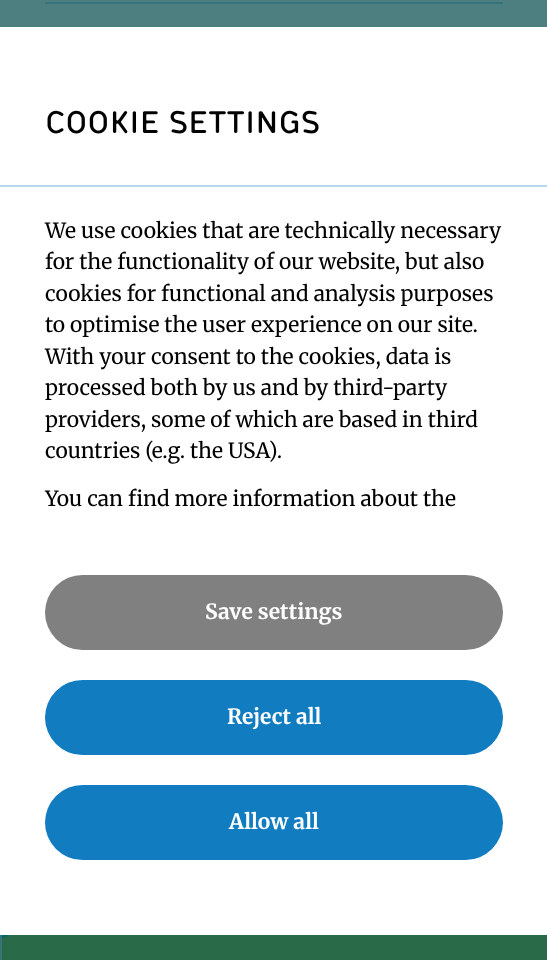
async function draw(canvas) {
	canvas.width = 547;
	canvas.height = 960;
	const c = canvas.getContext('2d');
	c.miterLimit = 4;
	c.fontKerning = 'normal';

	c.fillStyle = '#4d7f81';
	c.fillRect(0, 0, 547, 960);
	c.fillStyle = '#37737b';
	c.fillRect(45, 2, 458, 2);
	c.fillStyle = '#006668';
	c.fillRect(2, 935, 8, 4);
	c.save();
	c.beginPath();
	c.rect(2, 735, 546, 225);
	c.clip();
	c.fillStyle = '#296b48';
	c.beginPath();
	c.moveTo(1, 939);
	c.lineTo(1, 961);
	c.lineTo(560, 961);
	c.lineTo(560, 873);
	c.bezierCurveTo(326, 851, 88, 897, 1, 939);
	c.fill('evenodd');
	c.restore();
	c.fillStyle = '#fff';
	c.fillRect(0, 27, 547, 908);
	c.fillStyle = '#b8d8ec';
	c.fillRect(0, 185, 547, 2);
	c.font = 'bold 31.5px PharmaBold';
	c.fillStyle = '#000';
	c.fillText('COOKIE SETTINGS', 45, 133);
	c.font = '21px Merriweather';
	for (const [text, x, y] of [
		['We use cookies that are technically necessary', 45, 238],
		['for the functionality of our website, but also', 45, 269],
		['cookies for functional and analysis purposes', 45, 301],
		['to optimise the user experience on our site.', 45, 332],
		['With your consent to the cookies, data is', 45, 364],
		['processed both by us and by third-party', 45, 395],
		['providers, some of which are based in third', 45, 427],
		['countries (e.g. the USA).', 45, 458],
		['You can find more information about the', 45, 506],
	]) {
		c.fillText(text, x, y);
	}
	c.fillStyle = '#808080';
	c.beginPath();
	c.roundRect(45, 575, 458, 75, 37.5);
	c.fill();
	c.font = 'bold 21px Merriweather';
	c.fillStyle = '#fff';
	c.fillText('Save settings', 205, 619);
	c.fillStyle = '#127cc0';
	c.beginPath();
	c.roundRect(45, 680, 458, 75, 37.5);
	c.fill();
	c.fillStyle = '#fff';
	c.fillText('Reject all', 227, 724);
	c.fillStyle = '#127cc0';
	c.beginPath();
	c.roundRect(45, 785, 458, 75, 37.5);
	c.fill();
	c.fillStyle = '#fff';
	c.fillText('Allow all', 229, 829);
	c.fillStyle = '#37737b';
	c.fillRect(0, 935, 2, 25);
}

draw(document.querySelector('canvas'));
